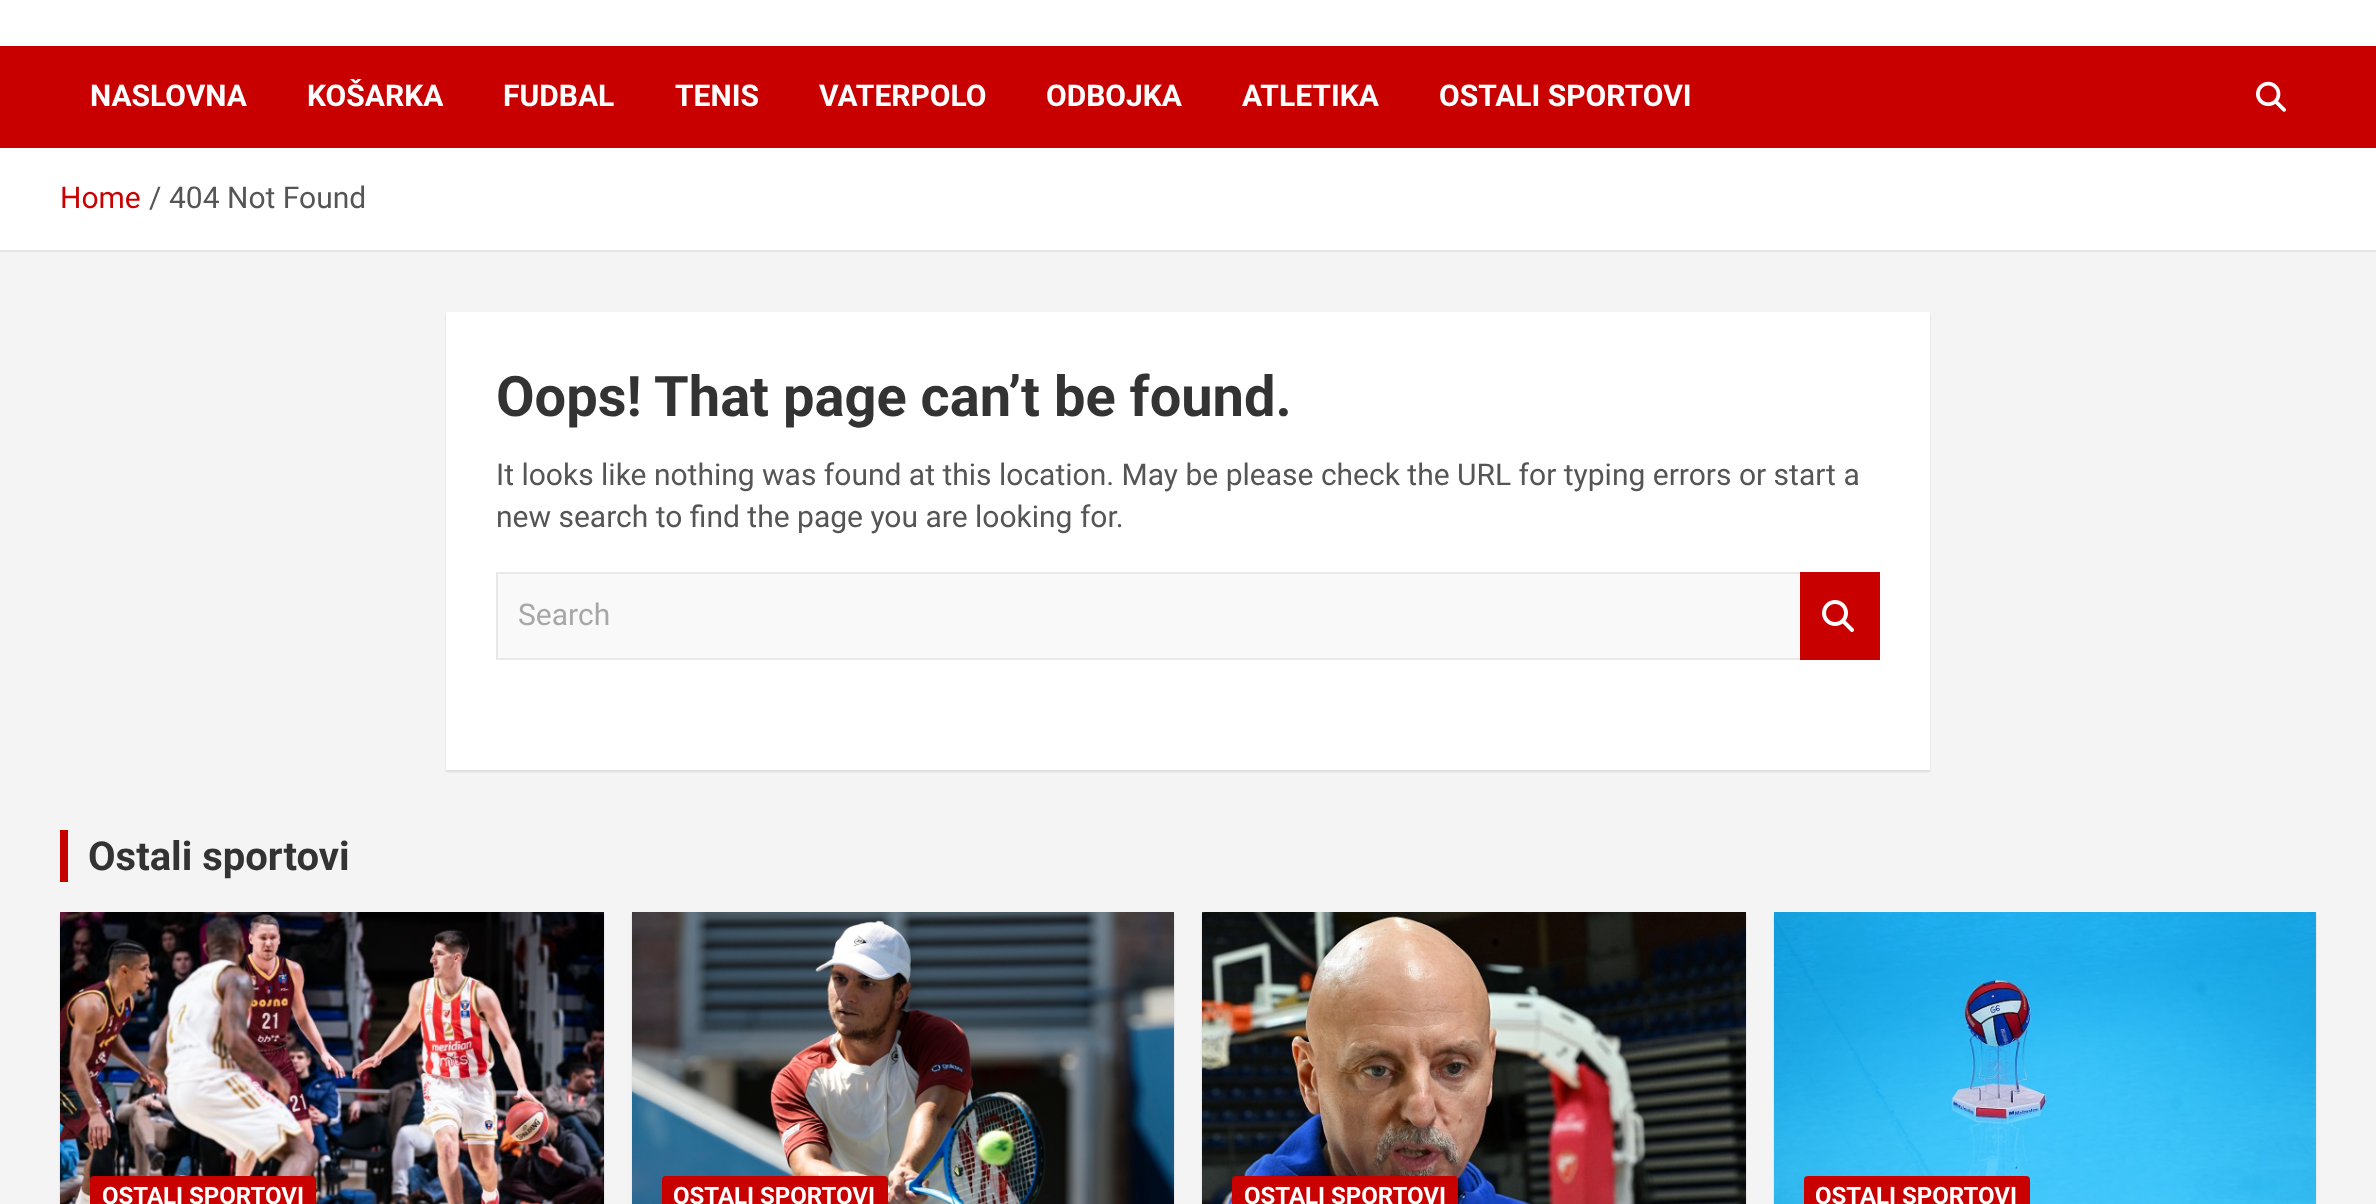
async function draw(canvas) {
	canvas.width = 2376;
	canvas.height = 1204;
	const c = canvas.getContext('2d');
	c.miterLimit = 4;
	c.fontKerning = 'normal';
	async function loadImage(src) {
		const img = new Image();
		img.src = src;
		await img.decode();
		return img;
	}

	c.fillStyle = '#f4f4f4';
	c.fillRect(0, 0, 2376, 1204);
	c.fillStyle = '#fff';
	c.fillRect(0, 0, 2376, 46);
	c.fillStyle = '#c80000';
	c.fillRect(0, 46, 2376, 102);
	c.font = 'bold 30px Roboto';
	c.fillStyle = '#fff';
	for (const [text, x, y] of [
		['NASLOVNA', 90, 106],
		['KOŠARKA', 307, 106],
		['FUDBAL', 503, 106],
		['TENIS', 675, 106],
		['VATERPOLO', 819, 106],
		['ODBOJKA', 1046, 106],
		['ATLETIKA', 1242, 106],
		['OSTALI SPORTOVI', 1439, 106],
	]) {
		c.fillText(text, x, y);
	}
	c.drawImage(await loadImage('img1.png'), 2256, 81, 30, 31);
	c.fillRect(0, 148, 2376, 102);
	c.fillStyle = '#e6e6e6';
	c.fillRect(0, 250, 2376, 2);
	c.font = '30px Roboto';
	c.fillStyle = '#c80000';
	c.fillText('Home', 60, 208);
	c.fillStyle = '#555';
	c.fillText('/', 149, 208);
	c.fillText('404 Not Found', 169, 208);
	c.fillStyle = '#0000001a';
	c.filter = 'blur(1px)';
	c.beginPath();
	c.rect(446, 314, 1484, 458);
	c.fill();
	c.filter = 'none';
	c.fillStyle = '#fff';
	c.fillRect(446, 312, 1484, 458);
	c.font = 'bold 56px Roboto';
	c.fillStyle = '#333';
	c.fillText('Oops! That page can’t be found.', 496, 416);
	c.font = '30px Roboto';
	c.fillStyle = '#555';
	c.fillText('It looks like nothing was found at this location. May be please check the URL for typing errors or start a', 496, 485);
	c.fillText('new search to find the page you are looking for.', 496, 527);
	c.fillStyle = '#f9f9f9';
	c.fillRect(498, 574, 1302, 84);
	c.fillStyle = '#e8e8e8';
	c.beginPath();
	c.moveTo(496, 572);
	c.lineTo(1800, 572);
	c.lineTo(1800, 574);
	c.lineTo(498, 574);
	c.closePath();
	c.fill();
	c.beginPath();
	c.moveTo(1800, 660);
	c.lineTo(496, 660);
	c.lineTo(498, 658);
	c.lineTo(1800, 658);
	c.closePath();
	c.fill();
	c.fillStyle = '#00000017';
	c.beginPath();
	c.moveTo(496, 660);
	c.lineTo(496, 572);
	c.lineTo(498, 574);
	c.lineTo(498, 658);
	c.closePath();
	c.fill();
	c.fillStyle = '#a7a7a7';
	c.fillText('Search', 518, 625);
	c.fillStyle = '#c80000';
	c.fillRect(1800, 572, 80, 88);
	c.drawImage(await loadImage('img2.png'), 1822, 600, 32, 32);
	c.fillRect(60, 830, 8, 52);
	c.font = 'bold 40px Roboto';
	c.fillStyle = '#333';
	c.fillText('Ostali sportovi', 88, 870);
	c.fillStyle = '#0000001a';
	c.filter = 'blur(1px)';
	c.beginPath();
	c.rect(60, 914, 544, 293);
	c.fill();
	c.filter = 'none';
	c.drawImage(await loadImage('img3.png'), 60, 912, 544, 292);
	c.fillStyle = '#c80000';
	c.beginPath();
	c.roundRect(90, 1176, 226, 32, 4);
	c.fill();
	c.font = 'bold 24px Roboto';
	c.fillStyle = '#fff';
	c.fillText('OSTALI SPORTOVI', 102, 1204);
	c.fillStyle = '#0000001a';
	c.filter = 'blur(1px)';
	c.beginPath();
	c.rect(632, 914, 542, 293);
	c.fill();
	c.filter = 'none';
	c.drawImage(await loadImage('img4.png'), 632, 912, 542, 292);
	c.fillStyle = '#c80000';
	c.beginPath();
	c.roundRect(662, 1176, 226, 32, 4);
	c.fill();
	c.fillStyle = '#fff';
	c.fillText('OSTALI SPORTOVI', 673, 1204);
	c.fillStyle = '#0000001a';
	c.filter = 'blur(1px)';
	c.beginPath();
	c.rect(1202, 914, 544, 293);
	c.fill();
	c.filter = 'none';
	c.drawImage(await loadImage('img5.png'), 1202, 912, 544, 292);
	c.fillStyle = '#c80000';
	c.beginPath();
	c.roundRect(1232, 1176, 226, 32, 4);
	c.fill();
	c.fillStyle = '#fff';
	c.fillText('OSTALI SPORTOVI', 1244, 1204);
	c.fillStyle = '#0000001a';
	c.filter = 'blur(1px)';
	c.beginPath();
	c.rect(1774, 914, 542, 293);
	c.fill();
	c.filter = 'none';
	c.drawImage(await loadImage('img6.png'), 1774, 912, 542, 292);
	c.fillStyle = '#c80000';
	c.beginPath();
	c.roundRect(1804, 1176, 226, 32, 4);
	c.fill();
	c.fillStyle = '#fff';
	c.fillText('OSTALI SPORTOVI', 1815, 1204);
}

draw(document.querySelector('canvas'));
